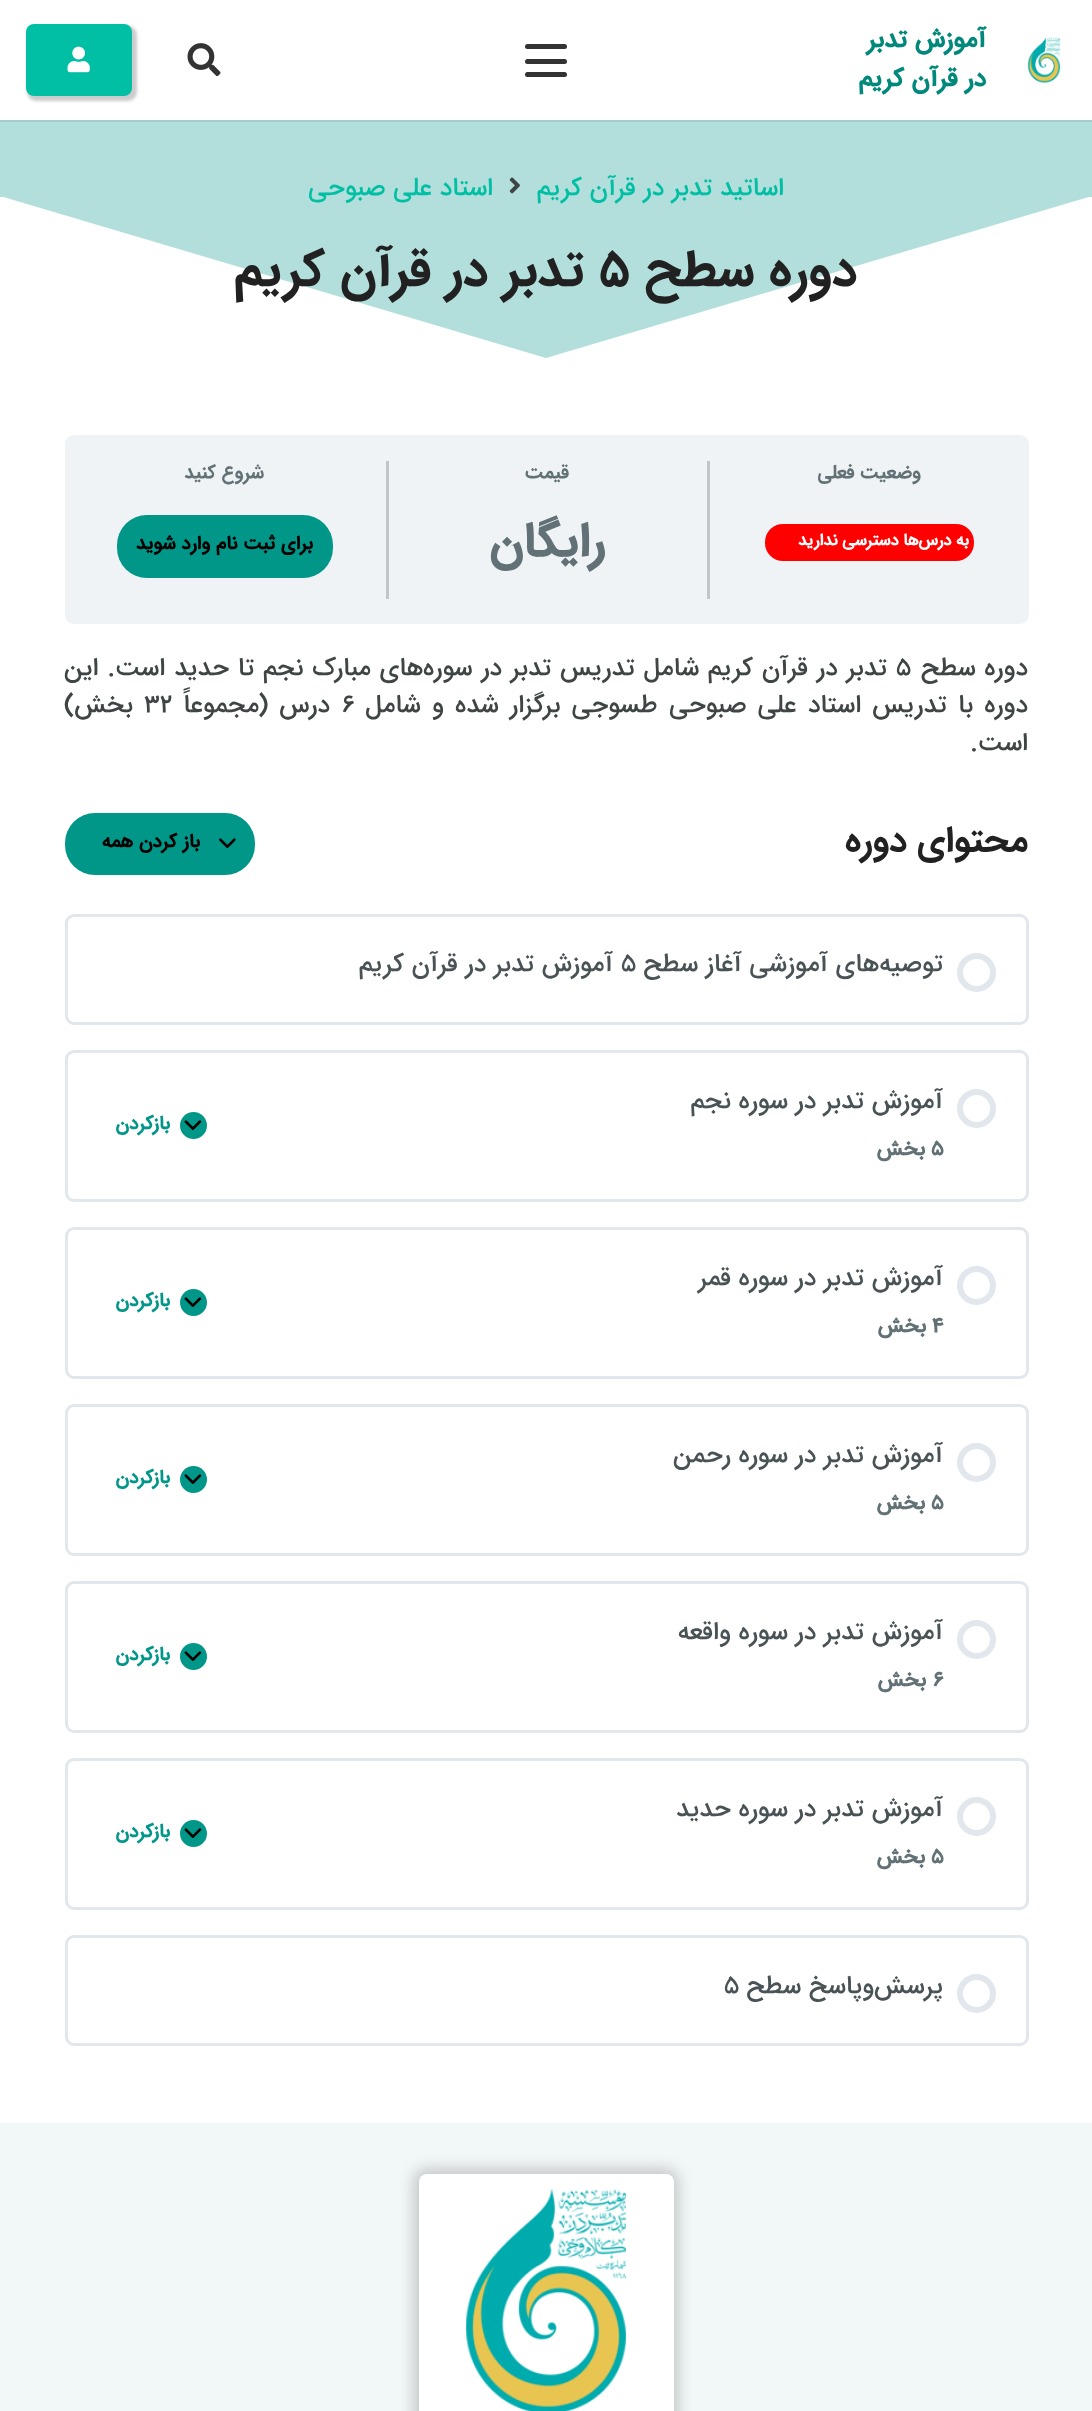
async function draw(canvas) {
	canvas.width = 1092;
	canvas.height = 2411;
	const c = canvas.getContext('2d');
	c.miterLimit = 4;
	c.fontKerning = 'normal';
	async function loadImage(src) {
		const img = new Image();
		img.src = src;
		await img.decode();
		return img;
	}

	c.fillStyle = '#fff';
	c.fillRect(0, 0, 1092, 2411);
	c.fillStyle = '#a4cdc9';
	c.fillRect(0, 120, 1092, 2);
	c.drawImage(await loadImage('img1.png'), 1027, 37, 34, 46);
	c.direction = 'rtl';
	c.font = 'bold 25.5px "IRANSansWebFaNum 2"';
	c.fillStyle = '#00897b';
	c.fillText('آموزش تدبر', 986, 47);
	c.fillText('در قرآن کریم', 986, 86);
	c.fillStyle = '#333';
	c.beginPath();
	c.roundRect(525, 59, 42, 5, 2.5);
	c.fill();
	c.beginPath();
	c.roundRect(525, 44, 42, 5, 2.5);
	c.fill();
	c.beginPath();
	c.roundRect(525, 72, 42, 5, 2.5);
	c.fill();
	c.drawImage(await loadImage('img2.png'), 187, 43, 34, 34);
	c.fillStyle = '#00000033';
	c.filter = 'blur(1.5px)';
	c.beginPath();
	c.roundRect(27, 26, 110, 75, 9);
	c.fill();
	c.filter = 'none';
	c.fillStyle = '#00bfa5';
	c.beginPath();
	c.roundRect(26, 24, 106, 72, 8);
	c.fill();
	c.drawImage(await loadImage('img3.png'), 67, 46, 23, 27);
	c.fillStyle = '#b2dfdb';
	c.fillRect(0, 122, 1092, 236);
	c.save();
	c.beginPath();
	c.rect(0, 197, 1092, 163);
	c.clip();
	c.fillStyle = '#fff';
	c.beginPath();
	c.moveTo(1092, 360);
	c.lineTo(0, 360);
	c.lineTo(0, 196);
	c.lineTo(546, 358);
	c.lineTo(1092, 196);
	c.closePath();
	c.fill();
	c.restore();
	c.font = '500 25.5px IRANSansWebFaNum';
	c.fillStyle = '#00bfa5';
	c.fillText('اساتید تدبر در قرآن کریم', 784, 195);
	c.drawImage(await loadImage('img4.png'), 509, 177, 11, 17);
	c.fillText('استاد علی صبوحی', 493, 195);
	c.font = 'bold 51px IRANSansWebFaNum';
	c.fillStyle = '#212121';
	c.fillText('دوره سطح', 857, 285);
	c.direction = 'ltr';
	c.fillText('5', 599, 285);
	c.direction = 'rtl';
	c.fillText('تدبر در قرآن کریم', 584, 285);
	c.fillStyle = '#f0f3f6';
	c.beginPath();
	c.roundRect(65, 435, 964, 189, 9);
	c.fill();
	c.fillStyle = '#bec5cb';
	c.fillRect(707, 461, 3, 138);
	c.font = 'bold 19.1px IRANSansWebFaNum';
	c.fillStyle = '#617175';
	c.fillText('وضعیت فعلی', 921, 478);
	c.fillStyle = '#f00';
	c.beginPath();
	c.roundRect(765, 524, 209, 37, 18);
	c.fill();
	c.letterSpacing = '0.75px';
	c.wordSpacing = '-1px';
	c.font = 'bold 16.5px "IRANSansWebFaNum 2"';
	c.fillStyle = '#fff';
	c.fillText('به درس‌ها دسترسی ندارید', 969, 545);
	c.fillStyle = '#bec5cb';
	c.fillRect(386, 461, 3, 138);
	c.letterSpacing = '0px';
	c.wordSpacing = '0px';
	c.font = 'bold 19.1px IRANSansWebFaNum';
	c.fillStyle = '#617175';
	c.fillText('قیمت', 569, 478);
	c.font = 'bold 48px "IRANSansWebFaNum 2"';
	c.fillText('رايگان', 605, 556);
	c.font = 'bold 19.1px IRANSansWebFaNum';
	c.fillText('شروع کنید', 264, 478);
	c.fillStyle = '#009688';
	c.beginPath();
	c.roundRect(117, 515, 216, 63, 30);
	c.fill();
	c.font = 'bold 19.1px "IRANSansWebFaNum 2"';
	c.fillStyle = '#000';
	c.fillText('برای ثبت نام وارد شوید', 313, 549);
	c.wordSpacing = '1px';
	c.font = '500 25.5px IRANSansWebFaNum';
	c.fillStyle = '#3f4544';
	c.fillText('دوره سطح', 1028, 675);
	c.wordSpacing = '0px';
	c.direction = 'ltr';
	c.fillText('5', 896, 675);
	c.wordSpacing = '1.25px';
	c.direction = 'rtl';
	c.fillText('تدبر در قرآن کریم شامل تدریس تدبر در سوره‌های مبارک نجم تا حدید است. این', 887, 675);
	c.wordSpacing = '3.6px';
	c.fillText('دوره با تدریس استاد علی صبوحی طسوجی برگزار شده و شامل', 1028, 712);
	c.wordSpacing = '0px';
	c.direction = 'ltr';
	c.fillText('6', 342, 712);
	c.wordSpacing = '3.6px';
	c.direction = 'rtl';
	c.fillText('درس (مجموعاً', 330, 712);
	c.wordSpacing = '0px';
	c.direction = 'ltr';
	c.fillText('32', 144, 712);
	c.direction = 'rtl';
	c.fillText('بخش)', 133, 712);
	c.fillText('است.', 1028, 750);
	c.font = 'bold 36px IRANSansWebFaNum';
	c.fillStyle = '#212121';
	c.fillText('محتوای دوره', 1028, 851);
	c.fillStyle = '#009688';
	c.beginPath();
	c.roundRect(65, 813, 190, 62, 30);
	c.fill();
	c.drawImage(await loadImage('img5.png'), 219, 838, 17, 10);
	c.font = 'bold 19.1px "IRANSansWebFaNum 2"';
	c.fillStyle = '#000';
	c.fillText('باز کردن همه', 200, 847);
	c.beginPath();
	c.roundRect(66.5, 915.5, 961, 108, 7.5);
	c.strokeStyle = '#e2e7ed';
	c.lineWidth = 3;
	c.stroke();
	c.beginPath();
	c.arc(976.5, 972.5, 16.5, 0, 2 * Math.PI);
	c.lineWidth = 6;
	c.stroke();
	c.font = '500 25.5px IRANSansWebFaNum';
	c.fillStyle = '#495255';
	c.fillText('توصیه‌های آموزشی آغاز سطح', 943, 971);
	c.direction = 'ltr';
	c.fillText('5', 621, 971);
	c.direction = 'rtl';
	c.fillText('آموزش تدبر در قرآن کریم', 613, 971);
	c.beginPath();
	c.roundRect(66.5, 1051.5, 961, 149, 7.5);
	c.lineWidth = 3;
	c.stroke();
	c.beginPath();
	c.arc(976.5, 1108.5, 16.5, 0, 2 * Math.PI);
	c.lineWidth = 6;
	c.stroke();
	c.fillText('آموزش تدبر در سوره نجم', 943, 1108);
	c.direction = 'ltr';
	c.font = 'bold 21px "IRANSansWebFaNum 2"';
	c.fillStyle = '#617175';
	c.fillText('5', 931, 1155);
	c.direction = 'rtl';
	c.fillText('بخش', 925, 1155);
	c.fillStyle = '#009688';
	c.beginPath();
	c.arc(193.5, 1125.5, 13.5, 0, 2 * Math.PI);
	c.fill();
	c.drawImage(await loadImage('img6.png'), 184, 1120, 18, 10);
	c.font = 'bold 19.1px "IRANSansWebFaNum 2"';
	c.fillText('بازکردن', 170, 1129);
	c.beginPath();
	c.roundRect(66.5, 1228.5, 961, 149, 7.5);
	c.lineWidth = 3;
	c.stroke();
	c.beginPath();
	c.arc(976.5, 1285.5, 16.5, 0, 2 * Math.PI);
	c.lineWidth = 6;
	c.stroke();
	c.font = '500 25.5px IRANSansWebFaNum';
	c.fillStyle = '#495255';
	c.fillText('آموزش تدبر در سوره قمر', 943, 1285);
	c.direction = 'ltr';
	c.font = 'bold 21px "IRANSansWebFaNum 2"';
	c.fillStyle = '#617175';
	c.fillText('4', 932, 1332);
	c.direction = 'rtl';
	c.fillText('بخش', 926, 1332);
	c.fillStyle = '#009688';
	c.beginPath();
	c.arc(193.5, 1302.5, 13.5, 0, 2 * Math.PI);
	c.fill();
	c.drawImage(await loadImage('img6.png'), 184, 1297, 18, 10);
	c.font = 'bold 19.1px "IRANSansWebFaNum 2"';
	c.fillText('بازکردن', 170, 1306);
	c.beginPath();
	c.roundRect(66.5, 1405.5, 961, 149, 7.5);
	c.lineWidth = 3;
	c.stroke();
	c.beginPath();
	c.arc(976.5, 1462.5, 16.5, 0, 2 * Math.PI);
	c.lineWidth = 6;
	c.stroke();
	c.font = '500 25.5px IRANSansWebFaNum';
	c.fillStyle = '#495255';
	c.fillText('آموزش تدبر در سوره رحمن', 943, 1462);
	c.direction = 'ltr';
	c.font = 'bold 21px "IRANSansWebFaNum 2"';
	c.fillStyle = '#617175';
	c.fillText('5', 931, 1509);
	c.direction = 'rtl';
	c.fillText('بخش', 925, 1509);
	c.fillStyle = '#009688';
	c.beginPath();
	c.arc(193.5, 1479.5, 13.5, 0, 2 * Math.PI);
	c.fill();
	c.drawImage(await loadImage('img6.png'), 184, 1474, 18, 10);
	c.font = 'bold 19.1px "IRANSansWebFaNum 2"';
	c.fillText('بازکردن', 170, 1483);
	c.beginPath();
	c.roundRect(66.5, 1582.5, 961, 149, 7.5);
	c.lineWidth = 3;
	c.stroke();
	c.beginPath();
	c.arc(976.5, 1639.5, 16.5, 0, 2 * Math.PI);
	c.lineWidth = 6;
	c.stroke();
	c.font = '500 25.5px IRANSansWebFaNum';
	c.fillStyle = '#495255';
	c.fillText('آموزش تدبر در سوره واقعه', 943, 1639);
	c.direction = 'ltr';
	c.font = 'bold 21px "IRANSansWebFaNum 2"';
	c.fillStyle = '#617175';
	c.fillText('6', 933, 1686);
	c.direction = 'rtl';
	c.fillText('بخش', 926, 1686);
	c.fillStyle = '#009688';
	c.beginPath();
	c.arc(193.5, 1656.5, 13.5, 0, 2 * Math.PI);
	c.fill();
	c.drawImage(await loadImage('img6.png'), 184, 1651, 18, 10);
	c.font = 'bold 19.1px "IRANSansWebFaNum 2"';
	c.fillText('بازکردن', 170, 1660);
	c.beginPath();
	c.roundRect(66.5, 1759.5, 961, 149, 7.5);
	c.lineWidth = 3;
	c.stroke();
	c.beginPath();
	c.arc(976.5, 1816.5, 16.5, 0, 2 * Math.PI);
	c.lineWidth = 6;
	c.stroke();
	c.font = '500 25.5px IRANSansWebFaNum';
	c.fillStyle = '#495255';
	c.fillText('آموزش تدبر در سوره حدید', 943, 1816);
	c.direction = 'ltr';
	c.font = 'bold 21px "IRANSansWebFaNum 2"';
	c.fillStyle = '#617175';
	c.fillText('5', 931, 1863);
	c.direction = 'rtl';
	c.fillText('بخش', 925, 1863);
	c.fillStyle = '#009688';
	c.beginPath();
	c.arc(193.5, 1833.5, 13.5, 0, 2 * Math.PI);
	c.fill();
	c.drawImage(await loadImage('img6.png'), 184, 1828, 18, 10);
	c.font = 'bold 19.1px "IRANSansWebFaNum 2"';
	c.fillText('بازکردن', 170, 1837);
	c.beginPath();
	c.roundRect(66.5, 1936.5, 961, 108, 7.5);
	c.lineWidth = 3;
	c.stroke();
	c.beginPath();
	c.arc(976.5, 1993.5, 16.5, 0, 2 * Math.PI);
	c.lineWidth = 6;
	c.stroke();
	c.font = '500 25.5px IRANSansWebFaNum';
	c.fillStyle = '#495255';
	c.fillText('پرسش‌وپاسخ سطح', 943, 1993);
	c.direction = 'ltr';
	c.fillText('5', 724, 1993);
	c.fillStyle = '#f2f7f7';
	c.fillRect(0, 2123, 1092, 288);
	c.fillStyle = '#00000033';
	c.filter = 'blur(7.5px)';
	c.beginPath();
	c.roundRect(414, 2169, 264, 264, 12);
	c.fill();
	c.filter = 'none';
	c.fillStyle = '#fff';
	c.beginPath();
	c.roundRect(419, 2174, 255, 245, 8);
	c.fill();
	c.drawImage(await loadImage('img7.png'), 466, 2188, 160, 223);
}

draw(document.querySelector('canvas'));
